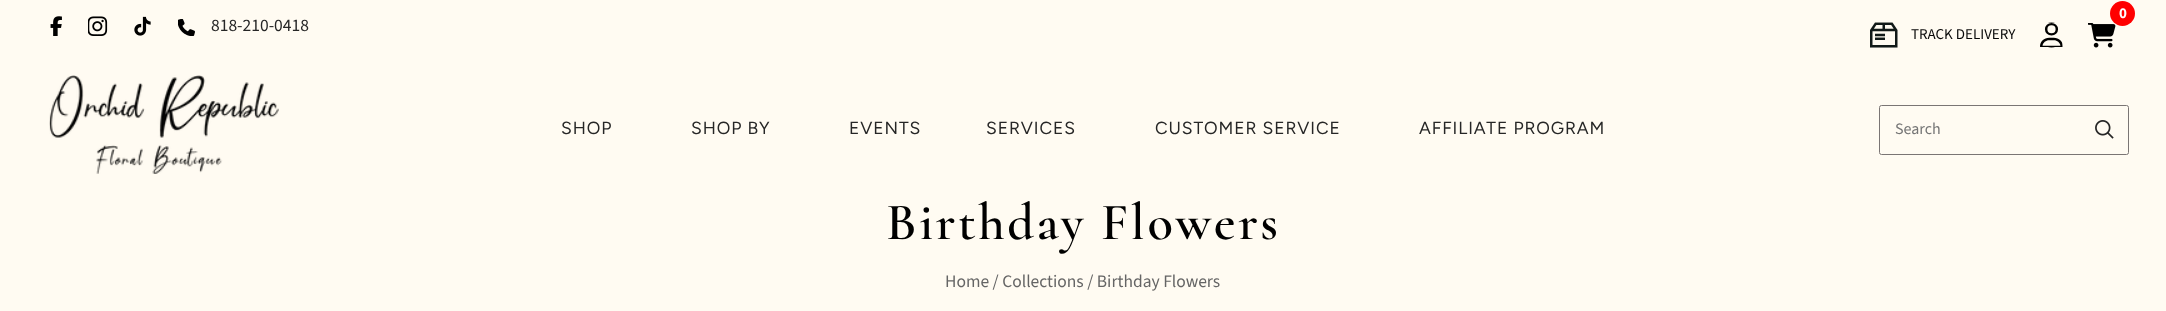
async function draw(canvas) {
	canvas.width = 2166;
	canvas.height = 311;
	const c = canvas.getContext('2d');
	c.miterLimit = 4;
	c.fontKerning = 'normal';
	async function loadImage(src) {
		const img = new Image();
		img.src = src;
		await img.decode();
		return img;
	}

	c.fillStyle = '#fffbf2';
	c.fillRect(0, 0, 2166, 311);
	c.drawImage(await loadImage('img1.png'), 50, 16, 12, 20);
	c.drawImage(await loadImage('img2.png'), 88, 16, 20, 20);
	c.drawImage(await loadImage('img3.png'), 134, 16, 17, 20);
	c.drawImage(await loadImage('img4.png'), 178, 19, 17, 17);
	c.font = '17.5px Source Sans Pro';
	c.fillStyle = '#262626';
	c.fillText('818-210-0418', 211, 31);
	c.drawImage(await loadImage('img5.png'), 2088, 23, 28, 25);
	c.fillStyle = '#f00';
	c.beginPath();
	c.arc(2122.5, 13.5, 12.5, 0, 2 * Math.PI);
	c.fill();
	c.font = 'bold 15px Source Sans Pro';
	c.fillStyle = '#fff';
	c.fillText('0', 2119, 18);
	c.drawImage(await loadImage('img6.png'), 1870, 22, 28, 26);
	c.font = '15px Source Sans Pro';
	c.fillStyle = '#080808';
	c.fillText('TRACK DELIVERY', 1911, 39);
	c.drawImage(await loadImage('img7.png'), 2040, 22, 23, 26);
	c.drawImage(await loadImage('img8.png'), 49, 75, 230, 99);
	c.letterSpacing = '0.9px';
	c.font = '17.5px Figtree';
	c.fillStyle = '#262626';
	for (const [text, x, y] of [
		['SHOP', 561, 134],
		['SHOP BY', 691, 134],
		['EVENTS', 849, 134],
		['SERVICES', 986, 134],
		['CUSTOMER SERVICE', 1155, 134],
		['AFFILIATE PROGRAM', 1419, 134],
	]) {
		c.fillText(text, x, y);
	}
	c.beginPath();
	c.roundRect(1879.5, 105.5, 249, 49, 2);
	c.strokeStyle = '#7a7574';
	c.stroke();
	c.letterSpacing = '0px';
	c.font = '16px Source Sans Pro';
	c.fillStyle = '#757575';
	c.fillText('Search', 1895, 134);
	c.drawImage(await loadImage('img9.png'), 2095, 120, 19, 19);
	c.letterSpacing = '2.6px';
	c.font = '600 52.5px Cormorant';
	c.fillStyle = '#000';
	c.fillText('Birthday Flowers', 886, 239);
	c.letterSpacing = '0px';
	c.font = '17.5px Source Sans Pro';
	c.fillStyle = '#656565';
	c.fillText('Home / Collections / Birthday Flowers', 945, 287);
}

draw(document.querySelector('canvas'));
